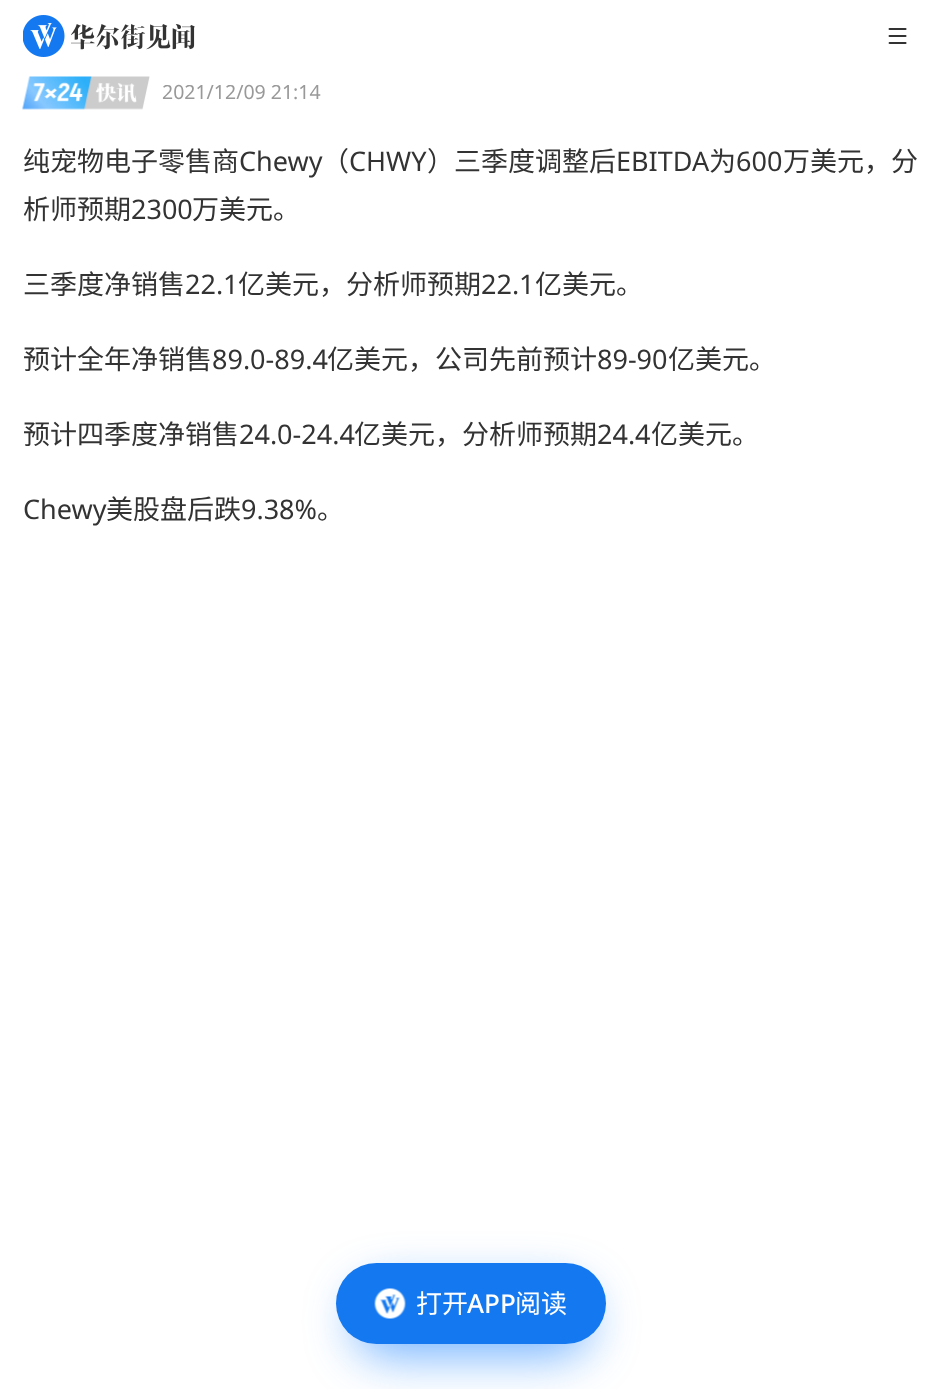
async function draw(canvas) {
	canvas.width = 940;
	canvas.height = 1389;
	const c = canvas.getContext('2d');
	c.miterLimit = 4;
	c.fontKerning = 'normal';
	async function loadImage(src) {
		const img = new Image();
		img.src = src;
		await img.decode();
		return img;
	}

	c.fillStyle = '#fff';
	c.fillRect(0, 0, 940, 1389);
	c.drawImage(await loadImage('img1.png'), 23, 15, 42, 42);
	c.drawImage(await loadImage('img2.png'), 71, 24, 124, 26);
	c.drawImage(await loadImage('img3.png'), 888, 28, 19, 16);
	c.drawImage(await loadImage('img4.png'), 22, 76, 128, 34);
	c.font = '19.5px Noto Sans';
	c.fillStyle = '#999';
	c.fillText('2021/12/09 21:14', 162, 99);
	c.font = '27px Noto Sans CJK SC';
	c.fillStyle = '#333';
	c.fillText('纯宠物电子零售商', 23, 171);
	c.font = '27px Noto Sans';
	c.fillText('Chewy', 239, 171);
	c.font = '27px Noto Sans CJK SC';
	c.fillText('（', 322, 171);
	c.font = '27px Noto Sans';
	c.fillText('CHWY', 349, 171);
	c.font = '27px Noto Sans CJK SC';
	c.fillText('）三季度调整后', 427, 171);
	c.font = '27px Noto Sans';
	c.fillText('EBITDA', 616, 171);
	c.font = '27px Noto Sans CJK SC';
	c.fillText('为', 709, 171);
	c.font = '27px Noto Sans';
	c.fillText('600', 736, 171);
	c.font = '27px Noto Sans CJK SC';
	c.fillText('万美元，分', 783, 171);
	c.fillText('析师预期', 23, 219);
	c.font = '27px Noto Sans';
	c.fillText('2300', 131, 219);
	c.font = '27px Noto Sans CJK SC';
	c.fillText('万美元。', 192, 219);
	c.fillText('三季度净销售', 23, 294);
	c.font = '27px Noto Sans';
	c.fillText('22.1', 185, 294);
	c.font = '27px Noto Sans CJK SC';
	c.fillText('亿美元，分析师预期', 238, 294);
	c.font = '27px Noto Sans';
	c.fillText('22.1', 481, 294);
	c.font = '27px Noto Sans CJK SC';
	c.fillText('亿美元。', 535, 294);
	c.fillText('预计全年净销售', 23, 369);
	c.font = '27px Noto Sans';
	c.fillText('89.0-89.4', 212, 369);
	c.font = '27px Noto Sans CJK SC';
	c.fillText('亿美元，公司先前预计', 327, 369);
	c.font = '27px Noto Sans';
	c.fillText('89-90', 597, 369);
	c.font = '27px Noto Sans CJK SC';
	c.fillText('亿美元。', 668, 369);
	c.fillText('预计四季度净销售', 23, 444);
	c.font = '27px Noto Sans';
	c.fillText('24.0-24.4', 239, 444);
	c.font = '27px Noto Sans CJK SC';
	c.fillText('亿美元，分析师预期', 354, 444);
	c.font = '27px Noto Sans';
	c.fillText('24.4', 597, 444);
	c.font = '27px Noto Sans CJK SC';
	c.fillText('亿美元。', 651, 444);
	c.font = '27px Noto Sans';
	c.fillText('Chewy', 23, 519);
	c.font = '27px Noto Sans CJK SC';
	c.fillText('美股盘后跌', 106, 519);
	c.font = '27px Noto Sans';
	c.fillText('9.38%', 241, 519);
	c.font = '27px Noto Sans CJK SC';
	c.fillText('。', 317, 519);
	c.fillStyle = '#1781ff99';
	c.filter = 'blur(24px)';
	c.beginPath();
	c.roundRect(353, 1286, 238, 70, 35);
	c.fill();
	c.filter = 'none';
	c.fillStyle = '#1478f0';
	c.beginPath();
	c.roundRect(336, 1263, 270, 81, 40.5);
	c.fill();
	c.drawImage(await loadImage('img5.png'), 374, 1288, 32, 31);
	c.font = '26px Noto Sans CJK SC';
	c.fillStyle = '#fff';
	c.fillText('打开', 416, 1313);
	c.font = '500 26px Noto Sans';
	c.fillText('APP', 467, 1313);
	c.font = '26px Noto Sans CJK SC';
	c.fillText('阅读', 515, 1313);
}

draw(document.querySelector('canvas'));
